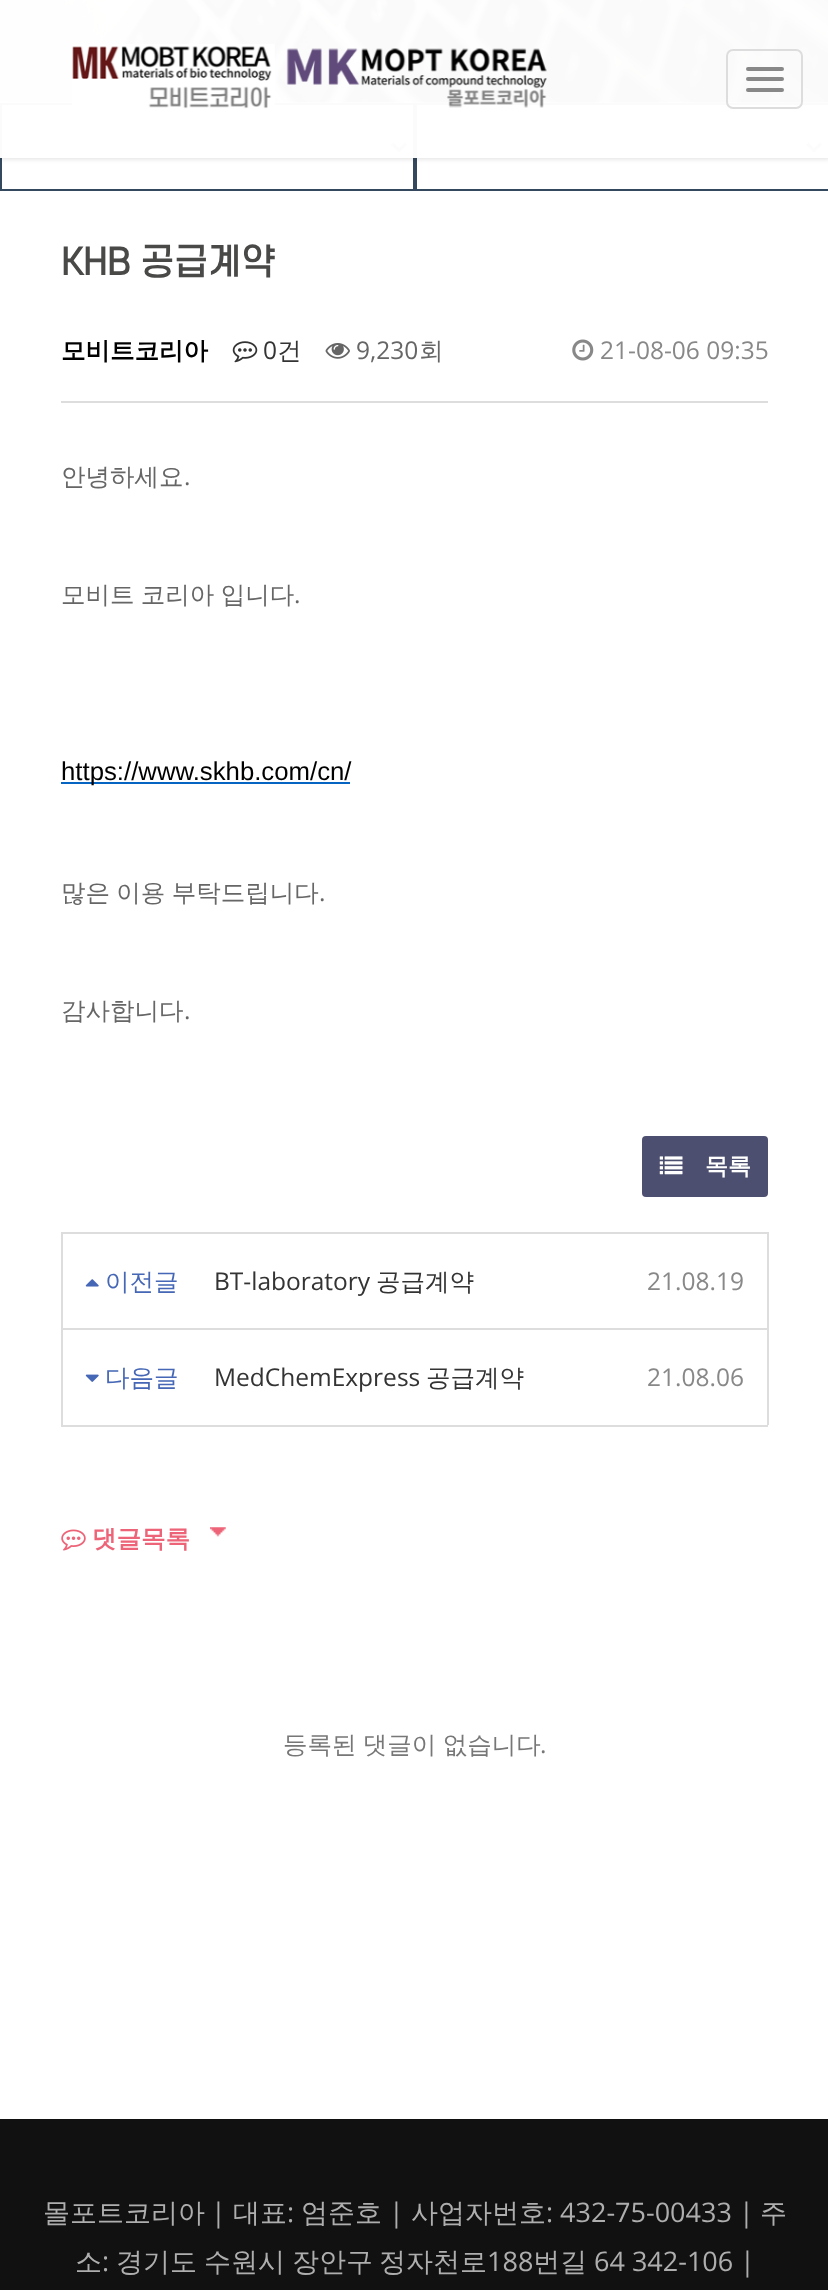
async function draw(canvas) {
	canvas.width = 828;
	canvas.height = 2290;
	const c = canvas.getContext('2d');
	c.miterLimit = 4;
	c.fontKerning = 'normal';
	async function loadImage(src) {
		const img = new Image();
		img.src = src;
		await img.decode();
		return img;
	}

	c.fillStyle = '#fff';
	c.fillRect(0, 0, 828, 2290);
	c.drawImage(await loadImage('img1.png'), 0, 0, 828, 103);
	c.strokeStyle = '#34495e';
	c.lineWidth = 2;
	c.strokeRect(1, 104, 413, 86);
	c.beginPath();
	c.moveTo(392, 143.5);
	c.lineTo(399, 150.5);
	c.lineTo(406, 143.5);
	c.strokeStyle = '#7a7a7a';
	c.lineWidth = 3.5;
	c.stroke();
	c.strokeStyle = '#34495e';
	c.lineWidth = 2;
	c.strokeRect(416, 104, 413, 86);
	c.beginPath();
	c.moveTo(807, 143.5);
	c.lineTo(814, 150.5);
	c.lineTo(821, 143.5);
	c.strokeStyle = '#7a7a7a';
	c.lineWidth = 3.5;
	c.stroke();
	c.save();
	c.beginPath();
	c.moveTo(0, 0);
	c.lineTo(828, 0);
	c.lineTo(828, 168);
	c.lineTo(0, 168);
	c.closePath();
	c.moveTo(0, 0);
	c.lineTo(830, 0);
	c.lineTo(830, 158);
	c.lineTo(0, 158);
	c.closePath();
	c.clip('evenodd');
	c.fillStyle = '#0000001f';
	c.filter = 'blur(2.5px)';
	c.beginPath();
	c.rect(0, 2, 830, 157);
	c.fill();
	c.filter = 'none';
	c.restore();
	c.fillStyle = '#fffffffa';
	c.fillRect(0, 0, 828, 158);
	c.drawImage(await loadImage('img2.png'), 72, 44, 475, 65);
	c.beginPath();
	c.roundRect(727, 50, 75, 58, 6);
	c.strokeStyle = '#ddd';
	c.lineWidth = 2;
	c.stroke();
	c.fillStyle = '#888';
	c.beginPath();
	c.roundRect(746, 67, 38, 4, 2);
	c.fill();
	c.beginPath();
	c.roundRect(746, 77, 38, 4, 2);
	c.fill();
	c.beginPath();
	c.roundRect(746, 88, 38, 4, 2);
	c.fill();
	c.font = 'bold 35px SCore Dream';
	c.fillStyle = '#494948';
	c.fillText('KHB 공급계약', 61, 275);
	c.fillStyle = '#ddd';
	c.fillRect(61, 401, 707, 2);
	c.font = 'bold 24.5px WenQuanYi Zen Hei';
	c.fillStyle = '#000';
	c.fillText('모비트코리아', 61, 359);
	c.drawImage(await loadImage('img3.png'), 232, 341, 26, 22);
	c.font = '24.5px Open Sans';
	c.fillStyle = '#333';
	c.fillText('0', 263, 359);
	c.font = '500 24.5px WenQuanYi Zen Hei';
	c.fillText('건', 277, 359);
	c.drawImage(await loadImage('img4.png'), 325, 343, 25, 16);
	c.font = '24.5px Open Sans';
	c.fillStyle = '#666';
	c.fillText('9,230', 356, 359);
	c.font = '500 24.5px WenQuanYi Zen Hei';
	c.fillText('회', 419, 359);
	c.drawImage(await loadImage('img5.png'), 572, 339, 22, 22);
	c.font = '24.5px Open Sans';
	c.fillStyle = '#888';
	c.fillText('21-08-06 09:35', 600, 359);
	c.font = '500 24.5px WenQuanYi Zen Hei';
	c.fillStyle = '#666';
	c.fillText('안녕하세요', 61, 485);
	c.font = '24.5px Open Sans';
	c.fillText('.', 184, 485);
	c.wordSpacing = '-1px';
	c.font = '500 24.5px WenQuanYi Zen Hei';
	c.fillText('모비트 코리아 입니다', 61, 603);
	c.wordSpacing = '0px';
	c.font = '24.5px Open Sans';
	c.fillText('.', 294, 603);
	c.fillStyle = '#0563c1';
	c.fillRect(61, 782, 289, 2);
	c.font = '25.75px Liberation Sans';
	c.fillStyle = '#000';
	c.fillText('https://www.skhb.com/cn/', 61, 780);
	c.wordSpacing = '-1px';
	c.font = '500 24.5px WenQuanYi Zen Hei';
	c.fillStyle = '#666';
	c.fillText('많은 이용 부탁드립니다', 61, 901);
	c.wordSpacing = '0px';
	c.font = '24.5px Open Sans';
	c.fillText('.', 319, 901);
	c.font = '500 24.5px WenQuanYi Zen Hei';
	c.fillText('감사합니다', 61, 1019);
	c.font = '24.5px Open Sans';
	c.fillText('.', 184, 1019);
	c.fillStyle = '#4c4f6f';
	c.beginPath();
	c.roundRect(642, 1136, 126, 61, 4);
	c.fill();
	c.drawImage(await loadImage('img6.png'), 659, 1156, 24, 19);
	c.font = 'bold 23px WenQuanYi Zen Hei';
	c.fillStyle = '#fff';
	c.fillText('목록', 705, 1174);
	for (const [x, y, w, h, color] of [
		[61, 1425, 707, 2, '#ddd'],
		[61, 1232, 707, 2, '#ddd'],
		[767, 1232, 2, 96, '#ddd'],
		[61, 1232, 2, 96, '#ddd'],
	]) {
		c.fillStyle = color;
		c.fillRect(x, y, w, h);
	}
	c.drawImage(await loadImage('img7.png'), 85, 1279, 14, 8);
	c.font = '500 24.5px WenQuanYi Zen Hei';
	c.fillStyle = '#4567b5';
	c.fillText('이전글', 105, 1290);
	c.font = '24.5px Open Sans';
	c.fillStyle = '#333';
	c.fillText('BT-laboratory', 214, 1290);
	c.font = '500 24.5px WenQuanYi Zen Hei';
	c.fillText('공급계약', 376, 1290);
	c.font = '24.5px Open Sans';
	c.fillStyle = '#888';
	c.fillText('21.08.19', 647, 1290);
	for (const [x, y, w, h, color] of [
		[61, 1328, 707, 2, '#ddd'],
		[767, 1328, 2, 97, '#ddd'],
		[61, 1328, 2, 97, '#ddd'],
	]) {
		c.fillStyle = color;
		c.fillRect(x, y, w, h);
	}
	c.drawImage(await loadImage('img8.png'), 85, 1374, 14, 8);
	c.font = '500 24.5px WenQuanYi Zen Hei';
	c.fillStyle = '#4567b5';
	c.fillText('다음글', 105, 1386);
	c.font = '24.5px Open Sans';
	c.fillStyle = '#333';
	c.fillText('MedChemExpress', 214, 1386);
	c.font = '500 24.5px WenQuanYi Zen Hei';
	c.fillText('공급계약', 426, 1386);
	c.font = '24.5px Open Sans';
	c.fillStyle = '#888';
	c.fillText('21.08.06', 647, 1386);
	c.drawImage(await loadImage('img9.png'), 210, 1527, 16, 10);
	c.drawImage(await loadImage('img10.png'), 61, 1529, 25, 22);
	c.font = 'bold 24.5px WenQuanYi Zen Hei';
	c.fillStyle = '#ed6478';
	c.fillText('댓글목록', 92, 1547);
	c.wordSpacing = '-1px';
	c.font = '500 24.5px WenQuanYi Zen Hei';
	c.fillStyle = '#777';
	c.fillText('등록된 댓글이 없습니다', 283, 1753);
	c.wordSpacing = '0px';
	c.font = '24.5px Open Sans';
	c.fillText('.', 540, 1753);
	c.fillStyle = '#111';
	c.fillRect(0, 2119, 828, 171);
	c.font = '500 27px WenQuanYi Zen Hei';
	c.fillStyle = '#aeaeae';
	c.fillText('몰포트코리아', 43, 2222);
	c.font = '27px Open Sans';
	c.fillText('|', 211, 2222);
	c.font = '500 27px WenQuanYi Zen Hei';
	c.fillText('대표', 233, 2222);
	c.font = '27px Open Sans';
	c.fillText(':', 287, 2222);
	c.font = '500 27px WenQuanYi Zen Hei';
	c.fillText('엄준호', 301, 2222);
	c.font = '27px Open Sans';
	c.fillText('|', 389, 2222);
	c.font = '500 27px WenQuanYi Zen Hei';
	c.fillText('사업자번호', 411, 2222);
	c.font = '27px Open Sans';
	c.fillText(': 432-75-00433 |', 546, 2222);
	c.font = '500 27px WenQuanYi Zen Hei';
	c.fillText('주', 760, 2222);
	c.fillText('소', 75, 2271);
	c.font = '27px Open Sans';
	c.fillText(':', 102, 2271);
	c.font = '500 27px WenQuanYi Zen Hei';
	for (const [text, x, y] of [
		['경기도', 116, 2271],
		['수원시', 204, 2271],
		['장안구', 292, 2271],
		['정자천로', 379, 2271],
	]) {
		c.fillText(text, x, y);
	}
	c.font = '27px Open Sans';
	c.fillText('188', 487, 2271);
	c.font = '500 27px WenQuanYi Zen Hei';
	c.fillText('번길', 533, 2271);
	c.font = '27px Open Sans';
	c.fillText('64 342-106', 594, 2271);
	c.fillText('|', 740, 2271);
}

draw(document.querySelector('canvas'));
